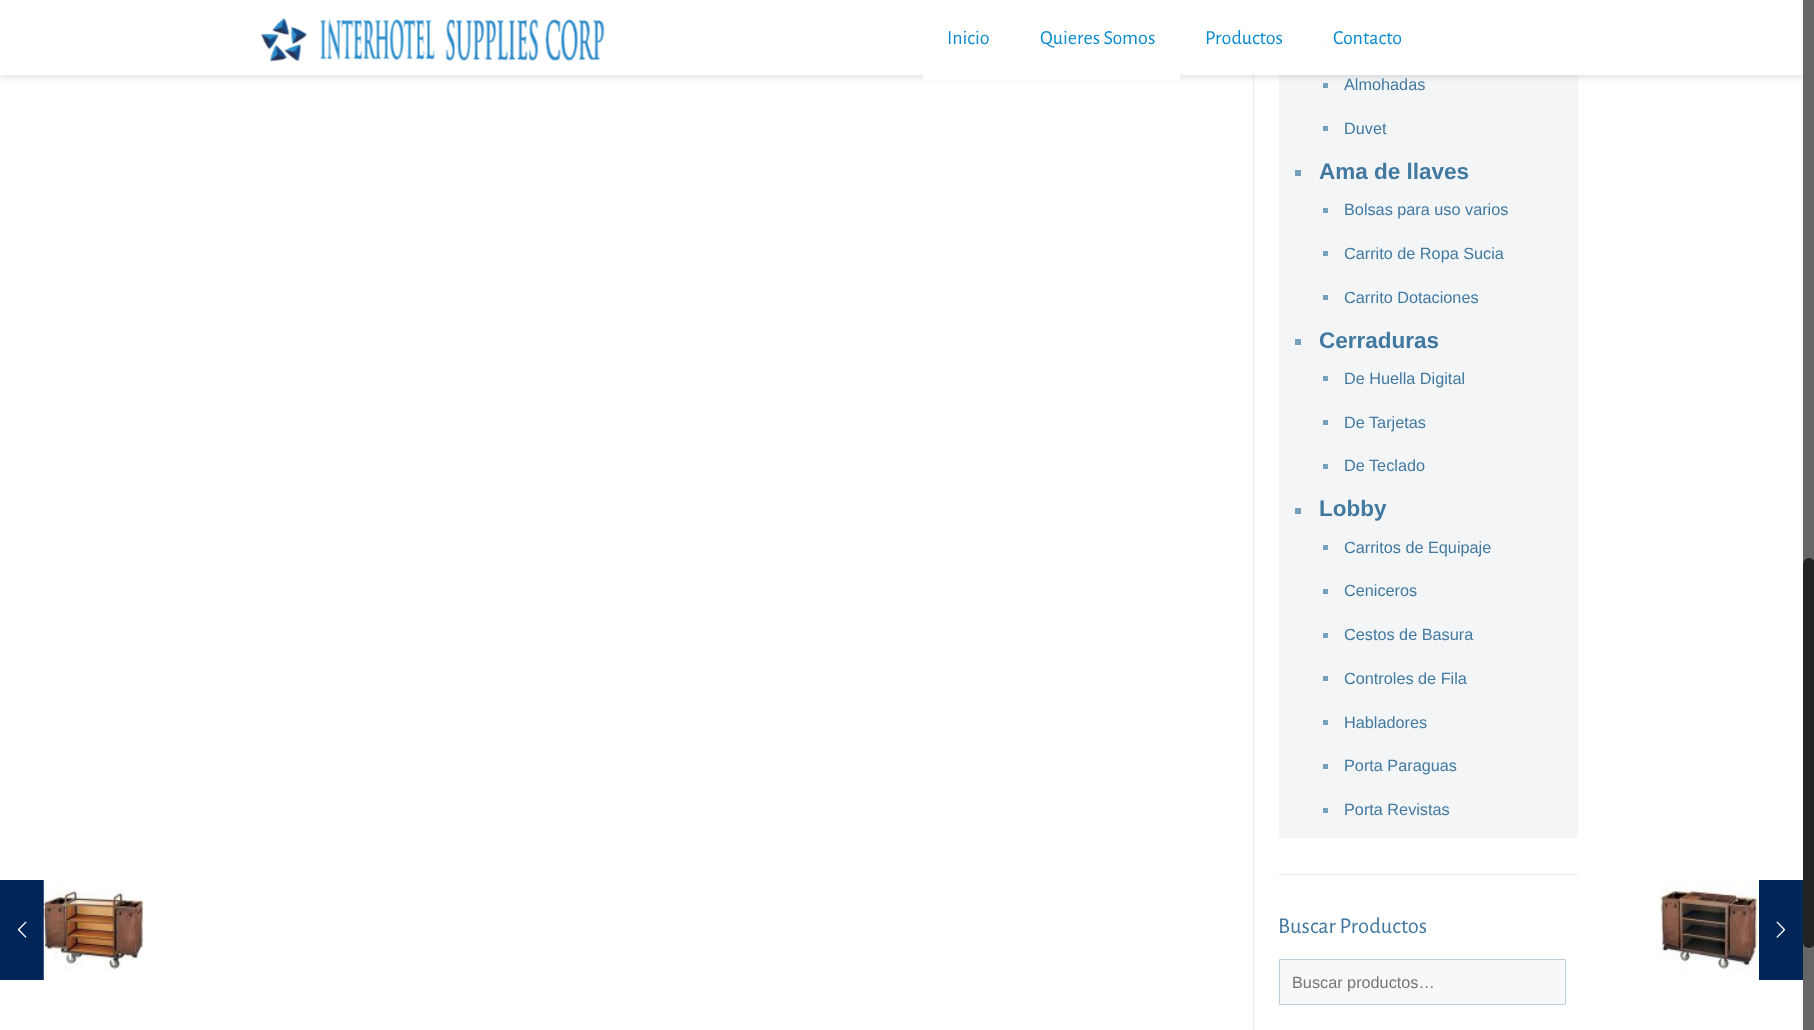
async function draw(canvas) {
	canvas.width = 1814;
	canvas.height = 1030;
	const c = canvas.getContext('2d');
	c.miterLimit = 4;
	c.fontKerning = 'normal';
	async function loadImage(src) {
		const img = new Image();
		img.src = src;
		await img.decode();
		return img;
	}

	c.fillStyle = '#fff';
	c.fillRect(0, 0, 1814, 1030);
	c.fillStyle = '#002559';
	c.fillRect(0, 880, 44, 100);
	c.drawImage(await loadImage('img1.png'), 17, 921, 10, 17);
	c.drawImage(await loadImage('img2.png'), 43, 880, 101, 100);
	for (const [x, y, w, h, color] of [
		[1253, 0, 1, 1030, '#ebebeb'],
		[1279, 0, 299, 838, '#f3f5f7'],
		[1323, 39, 5, 5, '#76a0be'],
		[1323, 83, 5, 5, '#76a0be'],
	]) {
		c.fillStyle = color;
		c.fillRect(x, y, w, h);
	}
	c.save();
	c.beginPath();
	c.rect(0, 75, 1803, 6);
	c.clip();
	c.fillStyle = '#0000001a';
	c.filter = 'blur(3px)';
	c.beginPath();
	c.rect(0, 3, 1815, 75);
	c.fill();
	c.filter = 'none';
	c.restore();
	c.fillStyle = '#fffffff7';
	c.fillRect(1253, 0, 325, 75);
	c.drawImage(await loadImage('img3.png'), 261, 18, 344, 44);
	c.font = '20px Alegreya Sans';
	c.fillStyle = '#0b8bcf';
	c.fillText('Inicio', 947, 44);
	c.fillStyle = '#fff';
	c.fillRect(923, 75, 257, 5);
	c.fillStyle = '#0b8bcf';
	for (const [text, x, y] of [
		['Quieres Somos', 1040, 44],
		['Productos', 1205, 44],
		['Contacto', 1333, 44],
	]) {
		c.fillText(text, x, y);
	}
	c.font = '16.25px Liberation Sans';
	c.fillStyle = '#4179a0';
	c.fillText('Almohadas', 1344, 90);
	c.fillStyle = '#76a0be';
	c.fillRect(1323, 126, 5, 5);
	c.fillStyle = '#4179a0';
	c.fillText('Duvet', 1344, 134);
	c.fillStyle = '#76a0be';
	c.fillRect(1295, 170, 6, 6);
	c.font = 'bold 22.5px Liberation Sans';
	c.fillStyle = '#4179a0';
	c.fillText('Ama de llaves', 1319, 179);
	c.fillStyle = '#76a0be';
	c.fillRect(1323, 208, 5, 5);
	c.font = '16.25px Liberation Sans';
	c.fillStyle = '#4179a0';
	c.fillText('Bolsas para uso varios', 1344, 215);
	c.fillStyle = '#76a0be';
	c.fillRect(1323, 251, 5, 5);
	c.fillStyle = '#4179a0';
	c.fillText('Carrito de Ropa Sucia', 1344, 259);
	c.fillStyle = '#76a0be';
	c.fillRect(1323, 295, 5, 5);
	c.fillStyle = '#4179a0';
	c.fillText('Carrito Dotaciones', 1344, 303);
	c.fillStyle = '#76a0be';
	c.fillRect(1295, 339, 6, 6);
	c.font = 'bold 22.5px Liberation Sans';
	c.fillStyle = '#4179a0';
	c.fillText('Cerraduras', 1319, 348);
	c.fillStyle = '#76a0be';
	c.fillRect(1323, 376, 5, 5);
	c.font = '16.25px Liberation Sans';
	c.fillStyle = '#4179a0';
	c.fillText('De Huella Digital', 1344, 384);
	c.fillStyle = '#76a0be';
	c.fillRect(1323, 420, 5, 5);
	c.fillStyle = '#4179a0';
	c.fillText('De Tarjetas', 1344, 428);
	c.fillStyle = '#76a0be';
	c.fillRect(1323, 464, 5, 5);
	c.fillStyle = '#4179a0';
	c.fillText('De Teclado', 1344, 471);
	c.fillStyle = '#76a0be';
	c.fillRect(1295, 508, 6, 6);
	c.font = 'bold 22.5px Liberation Sans';
	c.fillStyle = '#4179a0';
	c.fillText('Lobby', 1319, 516);
	c.fillStyle = '#76a0be';
	c.fillRect(1323, 545, 5, 5);
	c.font = '16.25px Liberation Sans';
	c.fillStyle = '#4179a0';
	c.fillText('Carritos de Equipaje', 1344, 553);
	c.fillStyle = '#76a0be';
	c.fillRect(1323, 589, 5, 5);
	c.fillStyle = '#4179a0';
	c.fillText('Ceniceros', 1344, 596);
	c.fillStyle = '#76a0be';
	c.fillRect(1323, 633, 5, 5);
	c.fillStyle = '#4179a0';
	c.fillText('Cestos de Basura', 1344, 640);
	c.fillStyle = '#76a0be';
	c.fillRect(1323, 676, 5, 5);
	c.fillStyle = '#4179a0';
	c.fillText('Controles de Fila', 1344, 684);
	c.fillStyle = '#76a0be';
	c.fillRect(1323, 720, 5, 5);
	c.fillStyle = '#4179a0';
	c.fillText('Habladores', 1344, 728);
	c.fillStyle = '#76a0be';
	c.fillRect(1323, 764, 5, 5);
	c.fillStyle = '#4179a0';
	c.fillText('Porta Paraguas', 1344, 771);
	c.fillStyle = '#76a0be';
	c.fillRect(1323, 808, 5, 5);
	c.fillStyle = '#4179a0';
	c.fillText('Porta Revistas', 1344, 815);
	c.fillStyle = '#e9e9e9';
	c.fillRect(1279, 874, 299, 1);
	c.font = '22.5px Alegreya Sans';
	c.fillStyle = '#4179a0';
	c.fillText('Buscar Productos', 1278, 933);
	c.fillStyle = '#f7f8f9';
	c.beginPath();
	c.rect(1279.5, 959.5, 286, 45);
	c.fill();
	c.strokeStyle = '#becfdc';
	c.stroke();
	c.font = '16.25px Liberation Sans';
	c.fillStyle = '#757575';
	c.fillText('Buscar productos…', 1292, 988);
	c.drawImage(await loadImage('img4.png'), 1659, 880, 100, 100);
	c.fillStyle = '#002559';
	c.fillRect(1759, 880, 44, 100);
	c.drawImage(await loadImage('img5.png'), 1776, 921, 10, 17);
	c.fillStyle = '#666';
	c.fillRect(1803, 0, 11, 1030);
	c.fillStyle = '#222';
	c.beginPath();
	c.roundRect(1803, 558, 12, 390, 6);
	c.fill();
}

draw(document.querySelector('canvas'));
